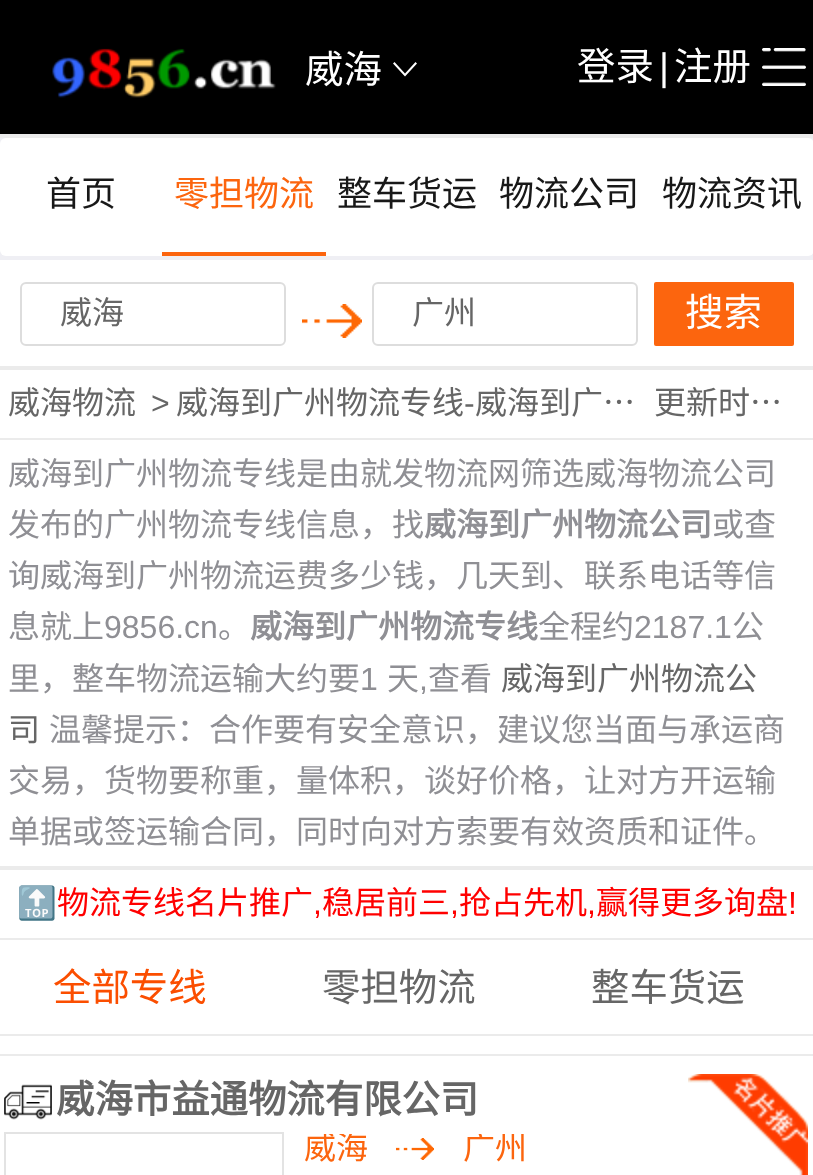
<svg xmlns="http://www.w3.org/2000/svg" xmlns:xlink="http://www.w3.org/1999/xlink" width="813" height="1175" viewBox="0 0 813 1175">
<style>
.cls-1{font:38.4px Noto Sans CJK SC;fill:#ffffff}
.cls-2{font:38.4px Liberation Sans;fill:#ffffff}
.cls-3{font:35px Noto Sans CJK SC;fill:#181818}
.cls-4{font:35px Noto Sans CJK SC;fill:#fc650e}
.cls-5{font:32px Noto Sans CJK SC;fill:#666666}
.cls-6{font:32px Liberation Sans;fill:#666666}
.cls-7{font:32px Noto Sans CJK SC;fill:#8f8f94}
.cls-8{font:bold 32px Noto Sans CJK SC;fill:#8f8f94}
.cls-9{font:32px Liberation Sans;fill:#8f8f94}
.cls-10{font:32px Noto Color Emoji;fill:#ff0000}
.cls-11{font:32px Noto Sans CJK SC;fill:#ff0000}
.cls-12{font:32px Liberation Sans;fill:#ff0000}
.cls-13{font:38.4px Noto Sans CJK SC;fill:#fb4e00}
.cls-14{font:38.4px Noto Sans CJK SC;fill:#666666}
.cls-15{font:bold 38.4px Noto Sans CJK SC;fill:#666666}
.cls-16{font:32px Noto Sans CJK SC;fill:#fc650e}
</style>
<defs>
<clipPath id="clip1"><rect x="304" y="1134" width="64" height="32"/></clipPath>
<clipPath id="clip2"><rect x="462" y="1134" width="64" height="32"/></clipPath>
</defs>
<rect width="100%" height="100%" fill="#ffffff"/>
<rect fill="#000000" x="0" y="0" width="813" height="134"/>
<image xlink:href="image0.png" x="52" y="48" width="224" height="50"/>
<path fill="#ffffff" d="M415.5 62L417 63.5L405 76.5L393 63.5L394.5 62L405 73.5Z"/>
<image xlink:href="image1.png" x="762" y="48" width="44" height="38"/>
<rect fill="#ebebeb" x="0" y="134" width="813" height="4"/>
<rect fill="#efeff4" x="0" y="138" width="813" height="122"/>
<rect fill="#ffffff" x="0" y="138" width="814" height="118" rx="6"/>
<rect fill="#fc650e" x="162" y="252" width="164" height="4"/>
<rect fill="none" stroke="#dddddd" stroke-width="2" x="21" y="283" width="264" height="62" rx="5"/>
<image xlink:href="image2.png" x="302" y="304" width="60" height="34"/>
<rect fill="none" stroke="#dddddd" stroke-width="2" x="373" y="283" width="264" height="62" rx="5"/>
<rect fill="#fc650e" x="654" y="282" width="140" height="64" rx="2"/>
<rect fill="#ebebeb" x="0" y="366" width="813" height="4"/>
<rect fill="#ebebeb" x="0" y="438" width="813" height="2"/>
<rect fill="#ebebeb" x="0" y="866" width="813" height="4"/>
<rect fill="#ebebeb" x="0" y="938" width="813" height="2"/>
<rect fill="#ebebeb" x="0" y="1054" width="813" height="2"/>
<rect fill="#ebebeb" x="0" y="1034" width="813" height="2"/>
<image xlink:href="image3.png" x="4" y="1084" width="48" height="36"/>
<image xlink:href="image4.png" x="688" y="1074" width="120" height="101"/>
<rect fill="none" stroke="#e3e3e3" stroke-width="2" x="5" y="1133" width="278" height="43"/>
<image xlink:href="image5.png" x="396" y="1138" width="38" height="22"/>
<text class="cls-1" x="305" y="83">威海</text>
<text class="cls-1" x="577" y="80">登录</text>
<text class="cls-2" x="659" y="80">|</text>
<text class="cls-1" x="674" y="80">注册</text>
<text class="cls-3" x="46" y="206">首页</text>
<text class="cls-4" x="174" y="206">零担物流</text>
<text class="cls-3" x="337" y="206">整车货运</text>
<text class="cls-3" x="499" y="206">物流公司</text>
<text class="cls-3" x="662" y="206">物流资讯</text>
<text class="cls-5" x="60" y="324">威海</text>
<text class="cls-5" x="412" y="324">广州</text>
<text class="cls-1" x="685" y="326">搜索</text>
<text class="cls-5" x="8" y="414">威海物流</text>
<text class="cls-6" x="151" y="414">&gt;</text>
<text class="cls-5" x="176" y="414">威海到广州物流专线</text>
<text class="cls-6" x="464" y="414">-</text>
<text class="cls-5" x="475" y="414">威海到广…</text>
<text class="cls-5" x="654" y="414">更新时…</text>
<text class="cls-7"><tspan x="8" y="485">威海到广州物流专线是由就发物流网筛选威海物流公司</tspan><tspan x="8" y="536">发布的广州物流专线信息，找</tspan></text>
<text class="cls-8" x="424" y="536">威海到广州物流公司</text>
<text class="cls-7" x="712" y="536">或查</text>
<text class="cls-7"><tspan x="8" y="587">询威海到广州物流运费多少钱，几天到、联系电话等信</tspan><tspan x="8" y="638">息就上</tspan></text>
<text class="cls-9" x="104" y="638">9856.cn</text>
<text class="cls-7" x="218" y="638">。</text>
<text class="cls-8" x="250" y="638">威海到广州物流专线</text>
<text class="cls-7" x="538" y="638">全程约</text>
<text class="cls-9" x="634" y="638">2187.1</text>
<text class="cls-7" x="732" y="638">公</text>
<text class="cls-7" x="8" y="690">里，整车物流运输大约要</text>
<text class="cls-9" x="360" y="690">1</text>
<text class="cls-7" x="387" y="690">天</text>
<text class="cls-9" x="419" y="690">,</text>
<text class="cls-7" x="428" y="690">查看</text>
<text class="cls-5" x="501" y="690">威海到广州物流公</text>
<text class="cls-5" x="8" y="741">司</text>
<text class="cls-7" x="49" y="741">温馨提示：合作要有安全意识，建议您当面与承运商</text>
<text class="cls-7"><tspan x="8" y="792">交易，货物要称重，量体积，谈好价格，让对方开运输</tspan><tspan x="8" y="843">单据或签运输合同，同时向对方索要有效资质和证件。</tspan></text>
<text class="cls-10" x="17" y="914">🔝</text>
<text class="cls-11" x="57" y="914">物流专线名片推广</text>
<text class="cls-12" x="313" y="914">,</text>
<text class="cls-11" x="322" y="914">稳居前三</text>
<text class="cls-12" x="450" y="914">,</text>
<text class="cls-11" x="459" y="914">抢占先机</text>
<text class="cls-12" x="587" y="914">,</text>
<text class="cls-11" x="596" y="914">赢得更多询盘</text>
<text class="cls-12" x="788" y="914">!</text>
<text class="cls-13" x="53" y="1001">全部专线</text>
<text class="cls-14" x="322" y="1001">零担物流</text>
<text class="cls-14" x="591" y="1001">整车货运</text>
<text class="cls-15" x="56" y="1113">威海市益通物流有限公司</text>
<g clip-path="url(#clip1)">
<text class="cls-16" x="304" y="1159">威海</text>
</g>
<g clip-path="url(#clip2)">
<text class="cls-16" x="463" y="1159">广州</text>
</g>
</svg>
